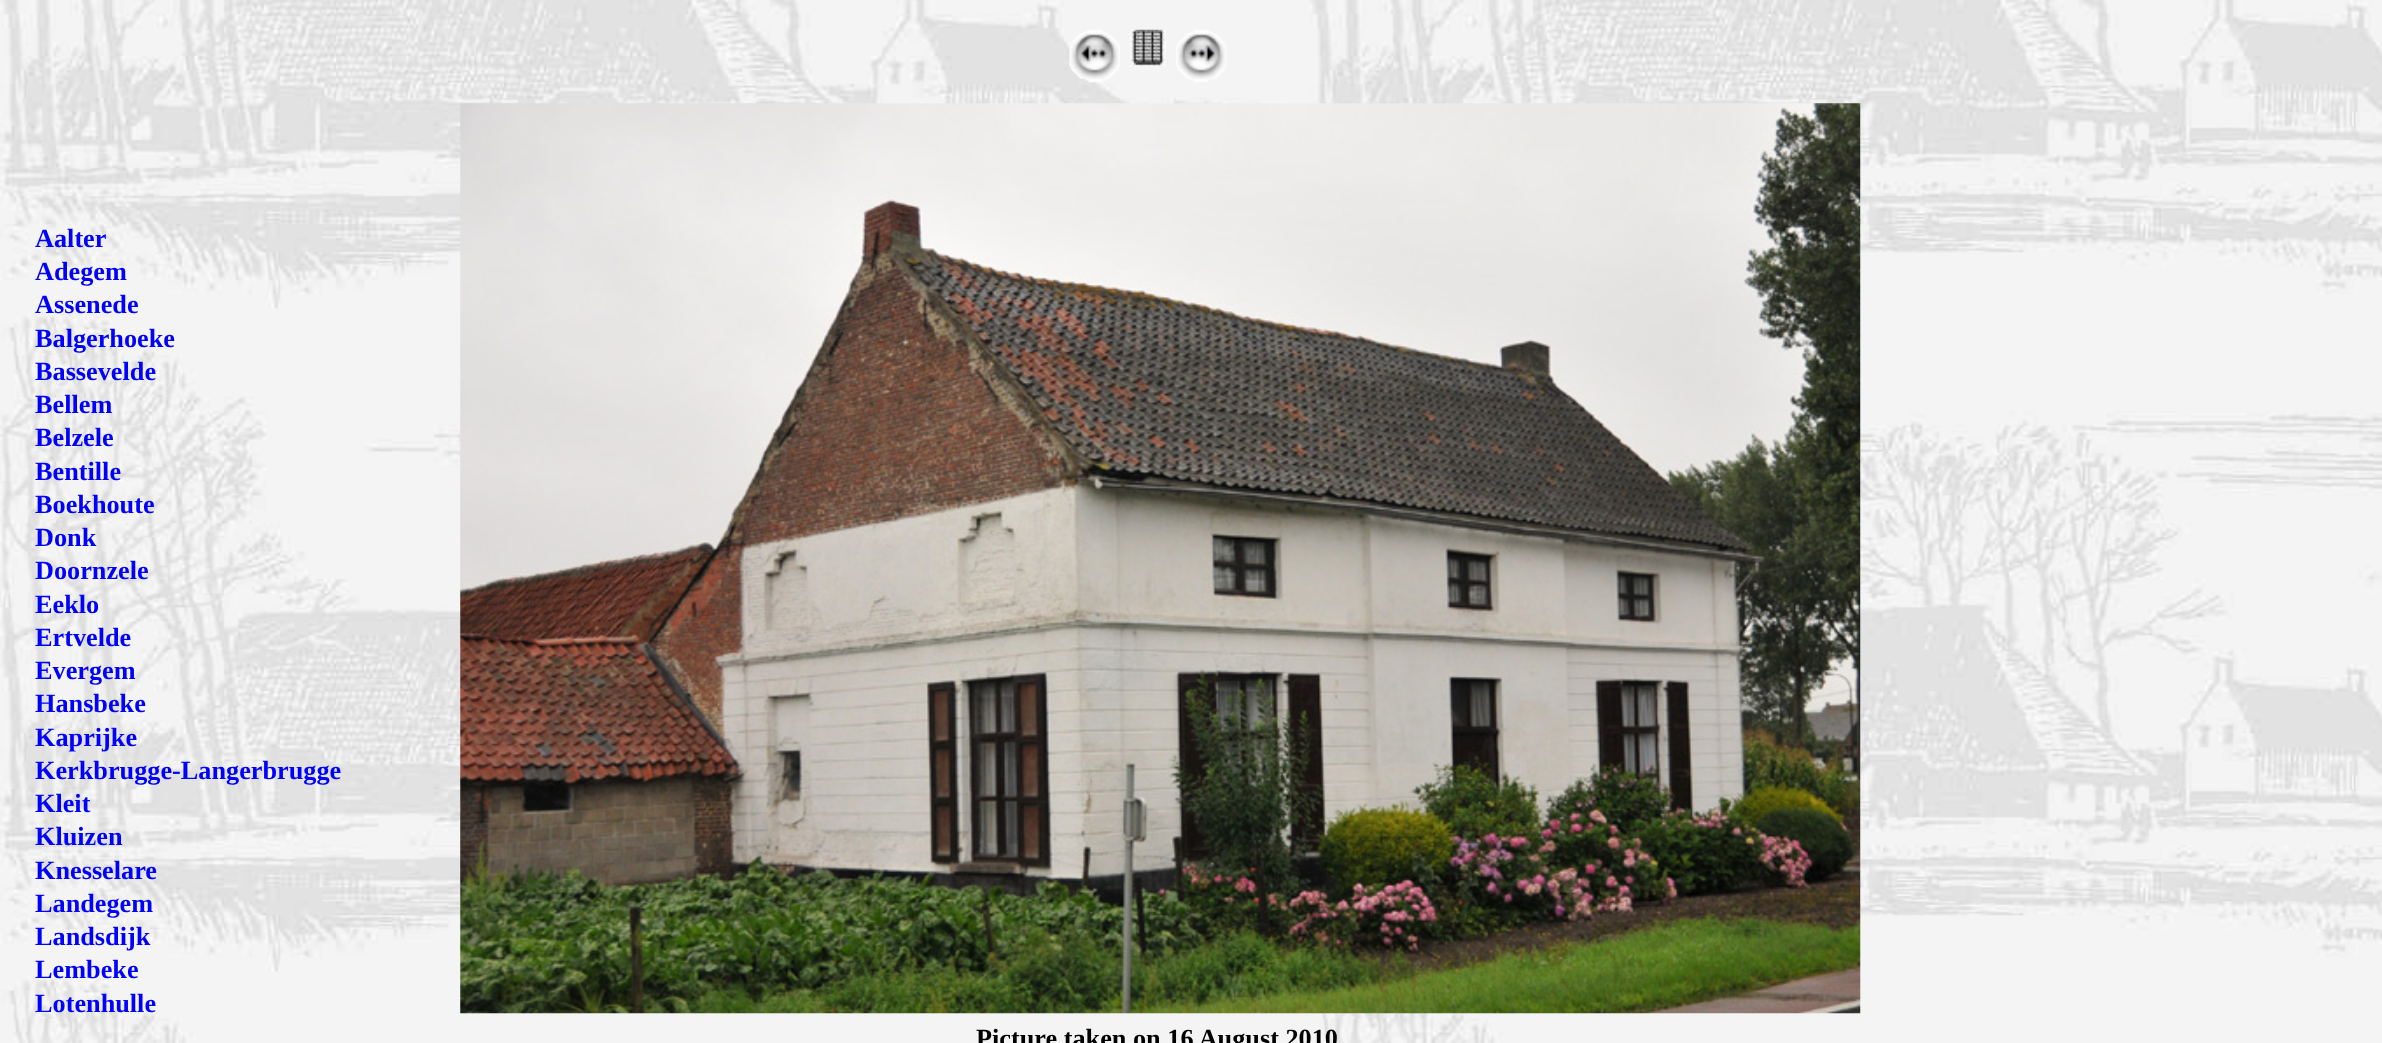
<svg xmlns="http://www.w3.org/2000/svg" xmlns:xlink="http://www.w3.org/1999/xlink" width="2382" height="1043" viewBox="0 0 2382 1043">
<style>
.cls-1{font:bold 26.25px Liberation Serif;fill:#0000ff}
.cls-2{font:bold 26.25px Liberation Serif;fill:#000000}
</style>
<rect width="100%" height="100%" fill="#ffffff"/>
<image xlink:href="image0.png" x="0" y="0" width="2382" height="1043"/>
<image xlink:href="image1.png" x="1069" y="30" width="51" height="53"/>
<image xlink:href="image2.png" x="1130" y="29" width="36" height="38"/>
<image xlink:href="image3.png" x="1176" y="30" width="51" height="52"/>
<image xlink:href="image4.png" x="460" y="103" width="1401" height="911"/>
<text class="cls-1"><tspan x="35" y="247">Aalter</tspan><tspan x="35" y="280">Adegem</tspan><tspan x="35" y="313">Assenede</tspan><tspan x="35" y="347">Balgerhoeke</tspan><tspan x="35" y="380">Bassevelde</tspan><tspan x="35" y="413">Bellem</tspan><tspan x="35" y="446">Belzele</tspan><tspan x="35" y="480">Bentille</tspan><tspan x="35" y="513">Boekhoute</tspan><tspan x="35" y="546">Donk</tspan><tspan x="35" y="579">Doornzele</tspan><tspan x="35" y="613">Eeklo</tspan><tspan x="35" y="646">Ertvelde</tspan><tspan x="35" y="679">Evergem</tspan><tspan x="35" y="712">Hansbeke</tspan><tspan x="35" y="746">Kaprijke</tspan><tspan x="35" y="779">Kerkbrugge-Langerbrugge</tspan><tspan x="35" y="812">Kleit</tspan><tspan x="35" y="845">Kluizen</tspan><tspan x="35" y="879">Knesselare</tspan><tspan x="35" y="912">Landegem</tspan><tspan x="35" y="945">Landsdijk</tspan><tspan x="35" y="978">Lembeke</tspan><tspan x="35" y="1012">Lotenhulle</tspan></text>
<text class="cls-2" x="976" y="1047">Picture taken on 16 August 2010</text>
</svg>
